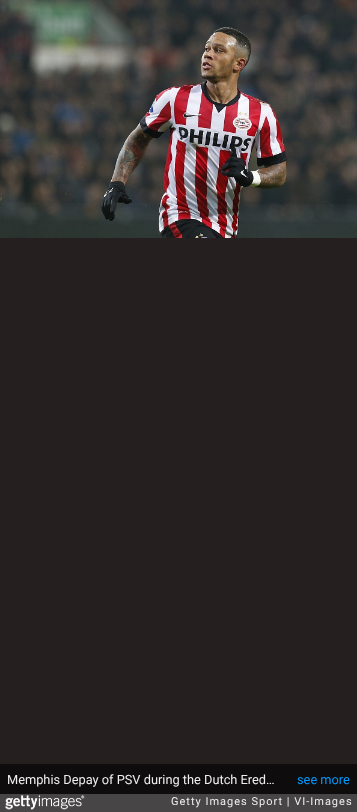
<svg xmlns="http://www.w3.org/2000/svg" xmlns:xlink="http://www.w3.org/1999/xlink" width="357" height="812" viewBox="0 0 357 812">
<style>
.cls-1{font:12.8px Roboto;fill:#eeeeee}
.cls-2{font:12.8px Roboto;fill:#0099ff}
.cls-3{font:11px Roboto;letter-spacing:1px;fill:#eeeeee}
</style>
<rect width="100%" height="100%" fill="#251f20"/>
<image xlink:href="image0.png" x="0" y="0" width="357" height="238"/>
<rect fill="#0f0c0d" x="0" y="764" width="357" height="30"/>
<rect fill="#474545" x="0" y="794" width="357" height="18"/>
<image xlink:href="image1.png" x="5" y="795" width="80" height="15"/>
<text class="cls-1" x="7" y="784">Memphis Depay of PSV during the Dutch Ered…</text>
<text class="cls-2" x="297" y="784">see more</text>
<text class="cls-3" x="171" y="805">Getty Images Sport | VI-Images</text>
</svg>
